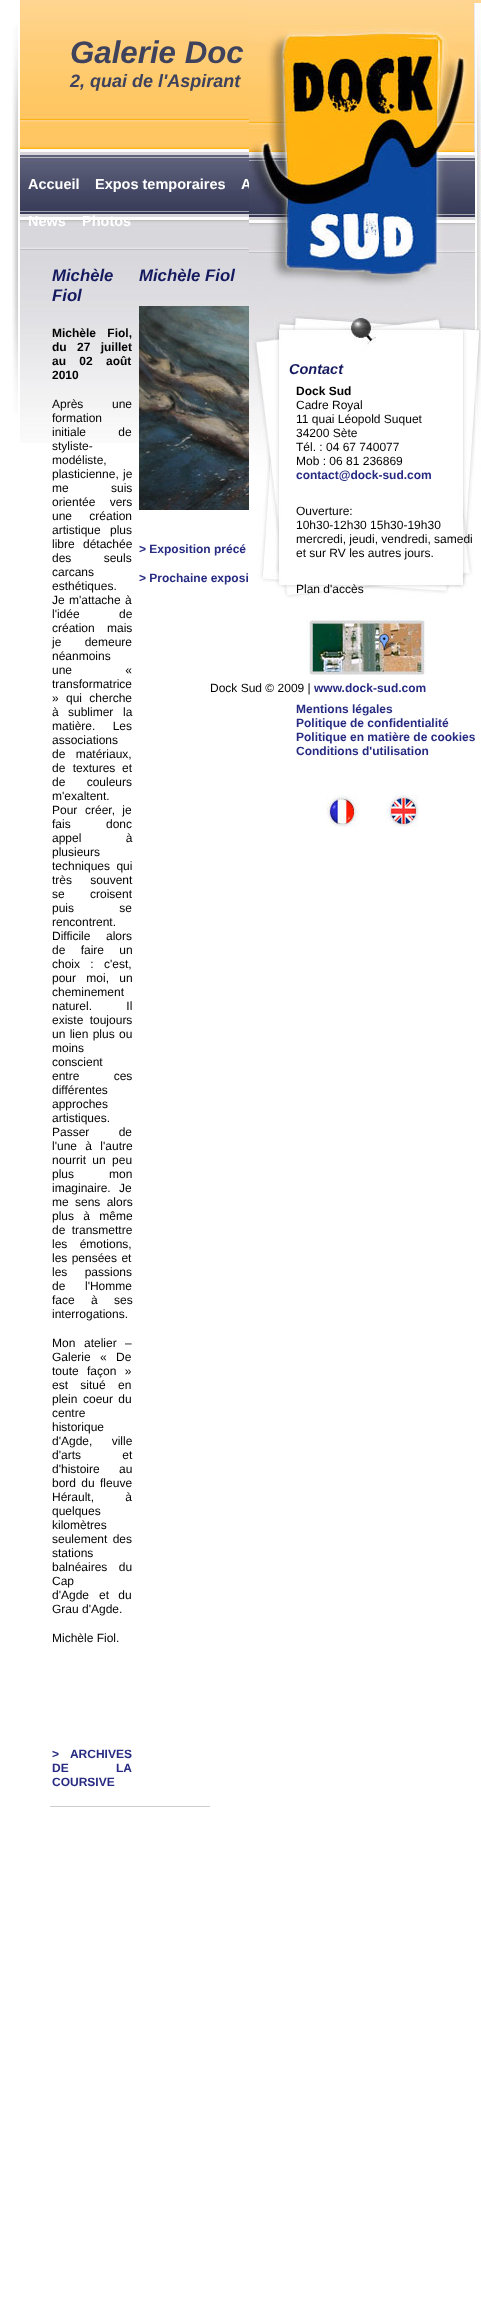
<svg xmlns="http://www.w3.org/2000/svg" xmlns:xlink="http://www.w3.org/1999/xlink" width="481" height="2313" viewBox="0 0 481 2313">
<style>
.cls-1{font:italic bold 31.25px Liberation Sans;fill:#3e425d}
.cls-2{font:italic bold 18px Liberation Sans;fill:#3e425d}
.cls-3{font:bold 14.5px Liberation Sans;fill:#ffffff}
.cls-4{font:italic bold 16.75px Liberation Sans;fill:#151a5f}
.cls-5{font:bold 12px Liberation Sans;fill:#000000}
.cls-6{font:12px Liberation Sans;fill:#000000}
.cls-7{font:bold 12px Liberation Sans;fill:#262b81}
.cls-8{font:italic bold 14.5px Liberation Sans;fill:#151a5f}
</style>
<rect width="100%" height="100%" fill="#ffffff"/>
<image xlink:href="image0.png" x="12" y="25" width="6" height="388"/>
<image xlink:href="image1.png" x="20" y="0" width="461" height="155"/>
<image xlink:href="image2.png" x="20" y="194" width="229" height="20"/>
<image xlink:href="image3.png" x="20" y="155" width="229" height="39"/>
<image xlink:href="image4.png" x="20" y="214" width="229" height="229"/>
<image xlink:href="image5.png" x="139" y="306" width="110" height="204"/>
<rect fill="#cccccc" x="50" y="1806" width="160" height="1"/>
<image xlink:href="image7.png" x="249" y="311" width="232" height="287"/>
<image xlink:href="image8.png" x="306" y="618" width="120" height="57"/>
<image xlink:href="image9.png" x="326" y="795" width="32" height="32"/>
<image xlink:href="image10.png" x="386" y="795" width="33" height="32"/>
<text class="cls-1" x="70" y="63">Galerie Doc</text>
<text class="cls-2" x="70" y="87">2, quai de l'Aspirant</text>
<text class="cls-3" x="28" y="189">Accueil</text>
<text class="cls-3" x="95" y="189">Expos temporaires</text>
<text class="cls-3" x="241" y="189">A</text>
<text class="cls-3" x="28" y="226">News</text>
<text class="cls-3" x="82" y="226">Photos</text>
<text class="cls-4"><tspan x="52" y="281">Michèle</tspan><tspan x="52" y="301">Fiol</tspan></text>
<text class="cls-5"><tspan x="52" y="337" word-spacing="8">Michèle Fiol,</tspan><tspan x="52" y="351">du</tspan></text>
<text class="cls-5" x="77" y="351" word-spacing="7">27 juillet</text>
<text class="cls-5"><tspan x="52" y="365" word-spacing="10">au 02 août</tspan><tspan x="52" y="379">2010</tspan></text>
<text class="cls-6" x="52" y="408">Après</text>
<text class="cls-6" x="112" y="408">une</text>
<text class="cls-6"><tspan x="52" y="422">formation</tspan><tspan x="52" y="436" word-spacing="29">initiale de</tspan><tspan x="52" y="450">styliste-</tspan><tspan x="52" y="464">modéliste,</tspan><tspan x="52" y="478" word-spacing="1">plasticienne, je</tspan><tspan x="52" y="492">me</tspan></text>
<text class="cls-6" x="111" y="492">suis</text>
<text class="cls-6"><tspan x="52" y="506" word-spacing="11">orientée vers</tspan><tspan x="52" y="520" word-spacing="14">une création</tspan><tspan x="52" y="534" word-spacing="6">artistique plus</tspan><tspan x="52" y="548">libre</tspan></text>
<text class="cls-6" x="83" y="548">détachée</text>
<text class="cls-6"><tspan x="52" y="562" word-spacing="29">des seuls</tspan><tspan x="52" y="576">carcans</tspan><tspan x="52" y="590">esthétiques.</tspan><tspan x="52" y="604">Je</tspan></text>
<text class="cls-6" x="69" y="604" word-spacing="1">m'attache à</text>
<text class="cls-6"><tspan x="52" y="618" word-spacing="36">l'idée de</tspan><tspan x="52" y="632" word-spacing="9">création mais</tspan><tspan x="52" y="646" word-spacing="20">je demeure</tspan><tspan x="52" y="660">néanmoins</tspan><tspan x="52" y="674" word-spacing="50">une «</tspan><tspan x="52" y="688">transformatrice</tspan><tspan x="52" y="702" word-spacing="4">» qui cherche</tspan><tspan x="52" y="716" word-spacing="6">à sublimer</tspan></text>
<text class="cls-6" x="123" y="716">la</text>
<text class="cls-6"><tspan x="52" y="730" word-spacing="14">matière. Les</tspan><tspan x="52" y="744">associations</tspan><tspan x="52" y="758" word-spacing="7">de matériaux,</tspan><tspan x="52" y="772" word-spacing="4">de textures</tspan></text>
<text class="cls-6" x="122" y="772">et</text>
<text class="cls-6"><tspan x="52" y="786" word-spacing="18">de couleurs</tspan><tspan x="52" y="800">m'exaltent.</tspan><tspan x="52" y="814">Pour</tspan></text>
<text class="cls-6" x="85" y="814" word-spacing="4">créer, je</text>
<text class="cls-6"><tspan x="52" y="828" word-spacing="32">fais donc</tspan><tspan x="52" y="842" word-spacing="41">appel à</tspan><tspan x="52" y="856">plusieurs</tspan><tspan x="52" y="870" word-spacing="3">techniques qui</tspan><tspan x="52" y="884" word-spacing="15">très souvent</tspan><tspan x="52" y="898" word-spacing="22">se croisent</tspan><tspan x="52" y="912" word-spacing="42">puis se</tspan><tspan x="52" y="926">rencontrent.</tspan><tspan x="52" y="940">Difficile</tspan></text>
<text class="cls-6" x="106" y="940">alors</text>
<text class="cls-6"><tspan x="52" y="954" word-spacing="12">de faire un</tspan><tspan x="52" y="968" word-spacing="7">choix : c'est,</tspan><tspan x="52" y="982" word-spacing="7">pour moi, un</tspan><tspan x="52" y="996">cheminement</tspan><tspan x="52" y="1010" word-spacing="31">naturel. Il</tspan><tspan x="52" y="1024" word-spacing="3">existe toujours</tspan><tspan x="52" y="1038" word-spacing="1">un lien plus ou</tspan><tspan x="52" y="1052">moins</tspan><tspan x="52" y="1066">conscient</tspan><tspan x="52" y="1080" word-spacing="31">entre ces</tspan><tspan x="52" y="1094">différentes</tspan><tspan x="52" y="1108">approches</tspan><tspan x="52" y="1122">artistiques.</tspan><tspan x="52" y="1136" word-spacing="26">Passer de</tspan><tspan x="52" y="1150" word-spacing="5">l'une à l'autre</tspan><tspan x="52" y="1164" word-spacing="3">nourrit un peu</tspan><tspan x="52" y="1178">plus</tspan></text>
<text class="cls-6" x="109" y="1178">mon</text>
<text class="cls-6"><tspan x="52" y="1192" word-spacing="5">imaginaire. Je</tspan><tspan x="52" y="1206" word-spacing="3">me sens alors</tspan><tspan x="52" y="1220" word-spacing="6">plus à même</tspan><tspan x="52" y="1234" word-spacing="3">de transmettre</tspan><tspan x="52" y="1248" word-spacing="9">les émotions,</tspan><tspan x="52" y="1262" word-spacing="1">les pensées et</tspan><tspan x="52" y="1276" word-spacing="14">les passions</tspan><tspan x="52" y="1290">de</tspan></text>
<text class="cls-6" x="85" y="1290">l'Homme</text>
<text class="cls-6"><tspan x="52" y="1304" word-spacing="13">face à ses</tspan><tspan x="52" y="1318">interrogations.</tspan></text>
<text class="cls-6" x="52" y="1347">Mon</text>
<text class="cls-6" x="84" y="1347" word-spacing="5">atelier –</text>
<text class="cls-6"><tspan x="52" y="1361" word-spacing="6">Galerie « De</tspan><tspan x="52" y="1375" word-spacing="5">toute façon »</tspan><tspan x="52" y="1389" word-spacing="9">est situé en</tspan><tspan x="52" y="1403">plein</tspan></text>
<text class="cls-6" x="83" y="1403" word-spacing="2">coeur du</text>
<text class="cls-6"><tspan x="52" y="1417">centre</tspan><tspan x="52" y="1431">historique</tspan><tspan x="52" y="1445" word-spacing="16">d'Agde, ville</tspan><tspan x="52" y="1459" word-spacing="38">d'arts et</tspan><tspan x="52" y="1473" word-spacing="16">d'histoire au</tspan><tspan x="52" y="1487" word-spacing="2">bord du fleuve</tspan><tspan x="52" y="1501" word-spacing="28">Hérault, à</tspan><tspan x="52" y="1515">quelques</tspan><tspan x="52" y="1529">kilomètres</tspan><tspan x="52" y="1543" word-spacing="2">seulement des</tspan><tspan x="52" y="1557">stations</tspan><tspan x="52" y="1571" word-spacing="8">balnéaires du</tspan><tspan x="52" y="1585">Cap</tspan><tspan x="52" y="1599">d'Agde</tspan></text>
<text class="cls-6" x="99" y="1599" word-spacing="6">et du</text>
<text class="cls-6" x="52" y="1613">Grau d'Agde.</text>
<text class="cls-6" x="52" y="1642">Michèle Fiol.</text>
<text class="cls-7"><tspan x="52" y="1758" word-spacing="8">&gt; ARCHIVES</tspan><tspan x="52" y="1772" word-spacing="44">DE LA</tspan><tspan x="52" y="1786">COURSIVE</tspan></text>
<text class="cls-4" x="139" y="281">Michèle Fiol</text>
<text class="cls-7" x="139" y="553">&gt; Exposition précé</text>
<text class="cls-7" x="139" y="582">&gt; Prochaine exposi</text>
<text class="cls-6" x="210" y="692">Dock Sud © 2009 |</text>
<image xlink:href="image6.png" x="249" y="3" width="232" height="308"/>
<text class="cls-8" x="289" y="374">Contact</text>
<text class="cls-5" x="296" y="395">Dock Sud</text>
<text class="cls-6"><tspan x="296" y="409">Cadre Royal</tspan><tspan x="296" y="423">11 quai Léopold Suquet</tspan><tspan x="296" y="437">34200 Sète</tspan><tspan x="296" y="451">Tél. : 04 67 740077</tspan><tspan x="296" y="465">Mob : 06 81 236869</tspan></text>
<text class="cls-7" x="296" y="479">contact@dock-sud.com</text>
<text class="cls-6"><tspan x="296" y="515">Ouverture:</tspan><tspan x="296" y="529">10h30-12h30 15h30-19h30</tspan><tspan x="296" y="543">mercredi, jeudi, vendredi, samedi</tspan><tspan x="296" y="557">et sur RV les autres jours.</tspan></text>
<text class="cls-6" x="296" y="593">Plan d'accès</text>
<text class="cls-7"><tspan x="296" y="713">Mentions légales</tspan><tspan x="296" y="727">Politique de confidentialité</tspan><tspan x="296" y="741">Politique en matière de cookies</tspan><tspan x="296" y="755">Conditions d'utilisation</tspan></text>
<text class="cls-7" x="314" y="692">www.dock-sud.com</text>
</svg>
